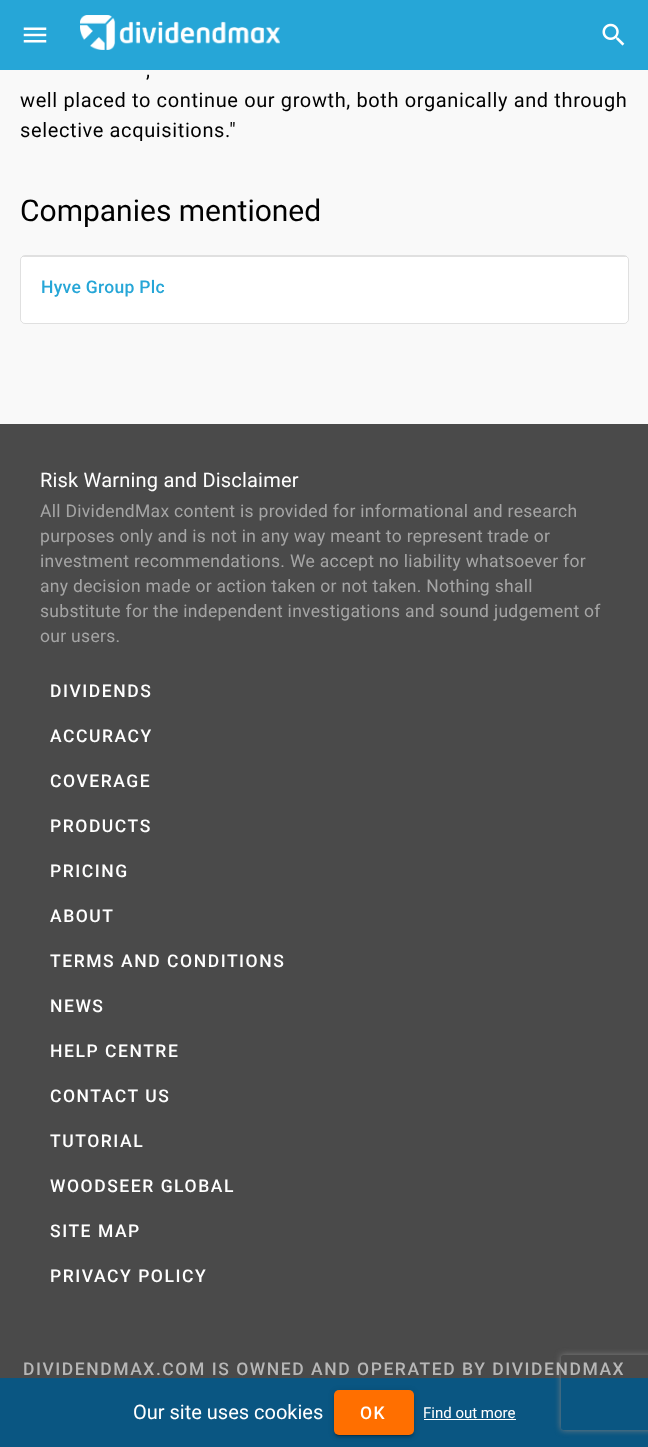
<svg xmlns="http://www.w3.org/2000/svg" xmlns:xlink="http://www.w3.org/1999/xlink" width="648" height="1447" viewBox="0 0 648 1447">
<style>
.cls-1{font:20px Roboto;letter-spacing:0.62px;fill:#000000}
.cls-2{font:30px Roboto;fill:#000000}
.cls-3{font:500 17.5px Roboto;letter-spacing:0.3px;fill:#26a6d7}
.cls-4{font:20px Roboto;letter-spacing:0.2px;fill:#ffffff}
.cls-5{font:17.5px Roboto;letter-spacing:0.3px;fill:#a5a5a5}
.cls-6{font:500 17.5px Roboto;letter-spacing:1.55px;fill:#ffffff}
.cls-7{font:500 17.5px Roboto;letter-spacing:1.55px;fill:#b7b7b7}
.cls-8{font:20px Roboto;fill:#ffffff}
.cls-9{font:15px Roboto;fill:#ffffff}
</style>
<defs>
<clipPath id="clip1"><rect x="21" y="256" width="607" height="67" rx="4"/></clipPath>
<clipPath id="clip2"><path d="M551 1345H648V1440H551ZM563.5 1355H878.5C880 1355 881 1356 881 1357.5V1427.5C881 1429 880 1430 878.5 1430H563.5C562 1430 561 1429 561 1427.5V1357.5C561 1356 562 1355 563.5 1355Z" clip-rule="evenodd"/></clipPath>
</defs>
<rect width="100%" height="100%" fill="#f9f9f9"/>
<rect fill="#26a6d7" x="0" y="0" width="648" height="70"/>
<image xlink:href="image0.png" x="23" y="27" width="24" height="16"/>
<image xlink:href="image1.png" x="80" y="15" width="200" height="35"/>
<image xlink:href="image2.png" x="602" y="23" width="23" height="23"/>
<rect fill="#ffffff" x="20" y="255" width="609" height="69" rx="5"/>
<rect fill="none" stroke="#000000" stroke-opacity="0.12" x="20.5" y="255.5" width="608" height="68" rx="4.5"/>
<g clip-path="url(#clip1)">
<rect fill="#000000" fill-opacity="0.12" x="21" y="256" width="607" height="1"/>
</g>
<rect fill="#4a4a4a" x="0" y="424" width="648" height="954"/>
<rect fill="#0a5682" x="0" y="1378" width="648" height="69"/>
<rect fill="#000000" fill-opacity="0.12" filter="blur(3px)" x="334" y="1391" width="80" height="45" rx="5"/>
<rect fill="#000000" fill-opacity="0.14" filter="blur(1px)" x="334" y="1393" width="80" height="45" rx="5"/>
<rect fill="#000000" fill-opacity="0.2" filter="blur(0.5px)" x="336" y="1396" width="75" height="40" rx="2.5"/>
<rect fill="#ff6f00" x="334" y="1390" width="80" height="45" rx="5"/>
<rect fill="#ffffff" x="424" y="1419" width="92" height="1"/>
<g clip-path="url(#clip2)">
<rect fill="#808080" filter="blur(3px)" x="561" y="1355" width="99" height="75" rx="2.5"/>
</g>
<text class="cls-1" x="146" y="77">,</text>
<text class="cls-1"><tspan x="20" y="107">well placed to continue our growth, both organically and through</tspan><tspan x="20" y="137">selective acquisitions."</tspan></text>
<text class="cls-2" x="20" y="221">Companies mentioned</text>
<text class="cls-3" x="41" y="293">Hyve Group Plc</text>
<text class="cls-4" x="40" y="487">Risk Warning and Disclaimer</text>
<text class="cls-5"><tspan x="40" y="517">All DividendMax content is provided for informational and research</tspan><tspan x="40" y="542">purposes only and is not in any way meant to represent trade or</tspan><tspan x="40" y="567">investment recommendations. We accept no liability whatsoever for</tspan><tspan x="40" y="592">any decision made or action taken or not taken. Nothing shall</tspan><tspan x="40" y="617">substitute for the independent investigations and sound judgement of</tspan><tspan x="40" y="642">our users.</tspan></text>
<text class="cls-6" x="50" y="697">DIVIDENDS</text>
<text class="cls-6" x="50" y="742">ACCURACY</text>
<text class="cls-6" x="50" y="787">COVERAGE</text>
<text class="cls-6" x="50" y="832">PRODUCTS</text>
<text class="cls-6" x="50" y="877">PRICING</text>
<text class="cls-6" x="50" y="922">ABOUT</text>
<text class="cls-6" x="50" y="967">TERMS AND CONDITIONS</text>
<text class="cls-6" x="50" y="1012">NEWS</text>
<text class="cls-6" x="50" y="1057">HELP CENTRE</text>
<text class="cls-6" x="50" y="1102">CONTACT US</text>
<text class="cls-6" x="50" y="1147">TUTORIAL</text>
<text class="cls-6" x="50" y="1192">WOODSEER GLOBAL</text>
<text class="cls-6" x="50" y="1237">SITE MAP</text>
<text class="cls-6" x="50" y="1282">PRIVACY POLICY</text>
<text class="cls-7" x="23" y="1375">DIVIDENDMAX.COM IS OWNED AND OPERATED BY DIVIDENDMAX</text>
<text class="cls-8" x="133" y="1419">Our site uses cookies</text>
<text class="cls-6" x="360" y="1419">OK</text>
<text class="cls-9" x="423" y="1418">Find out more</text>
</svg>
